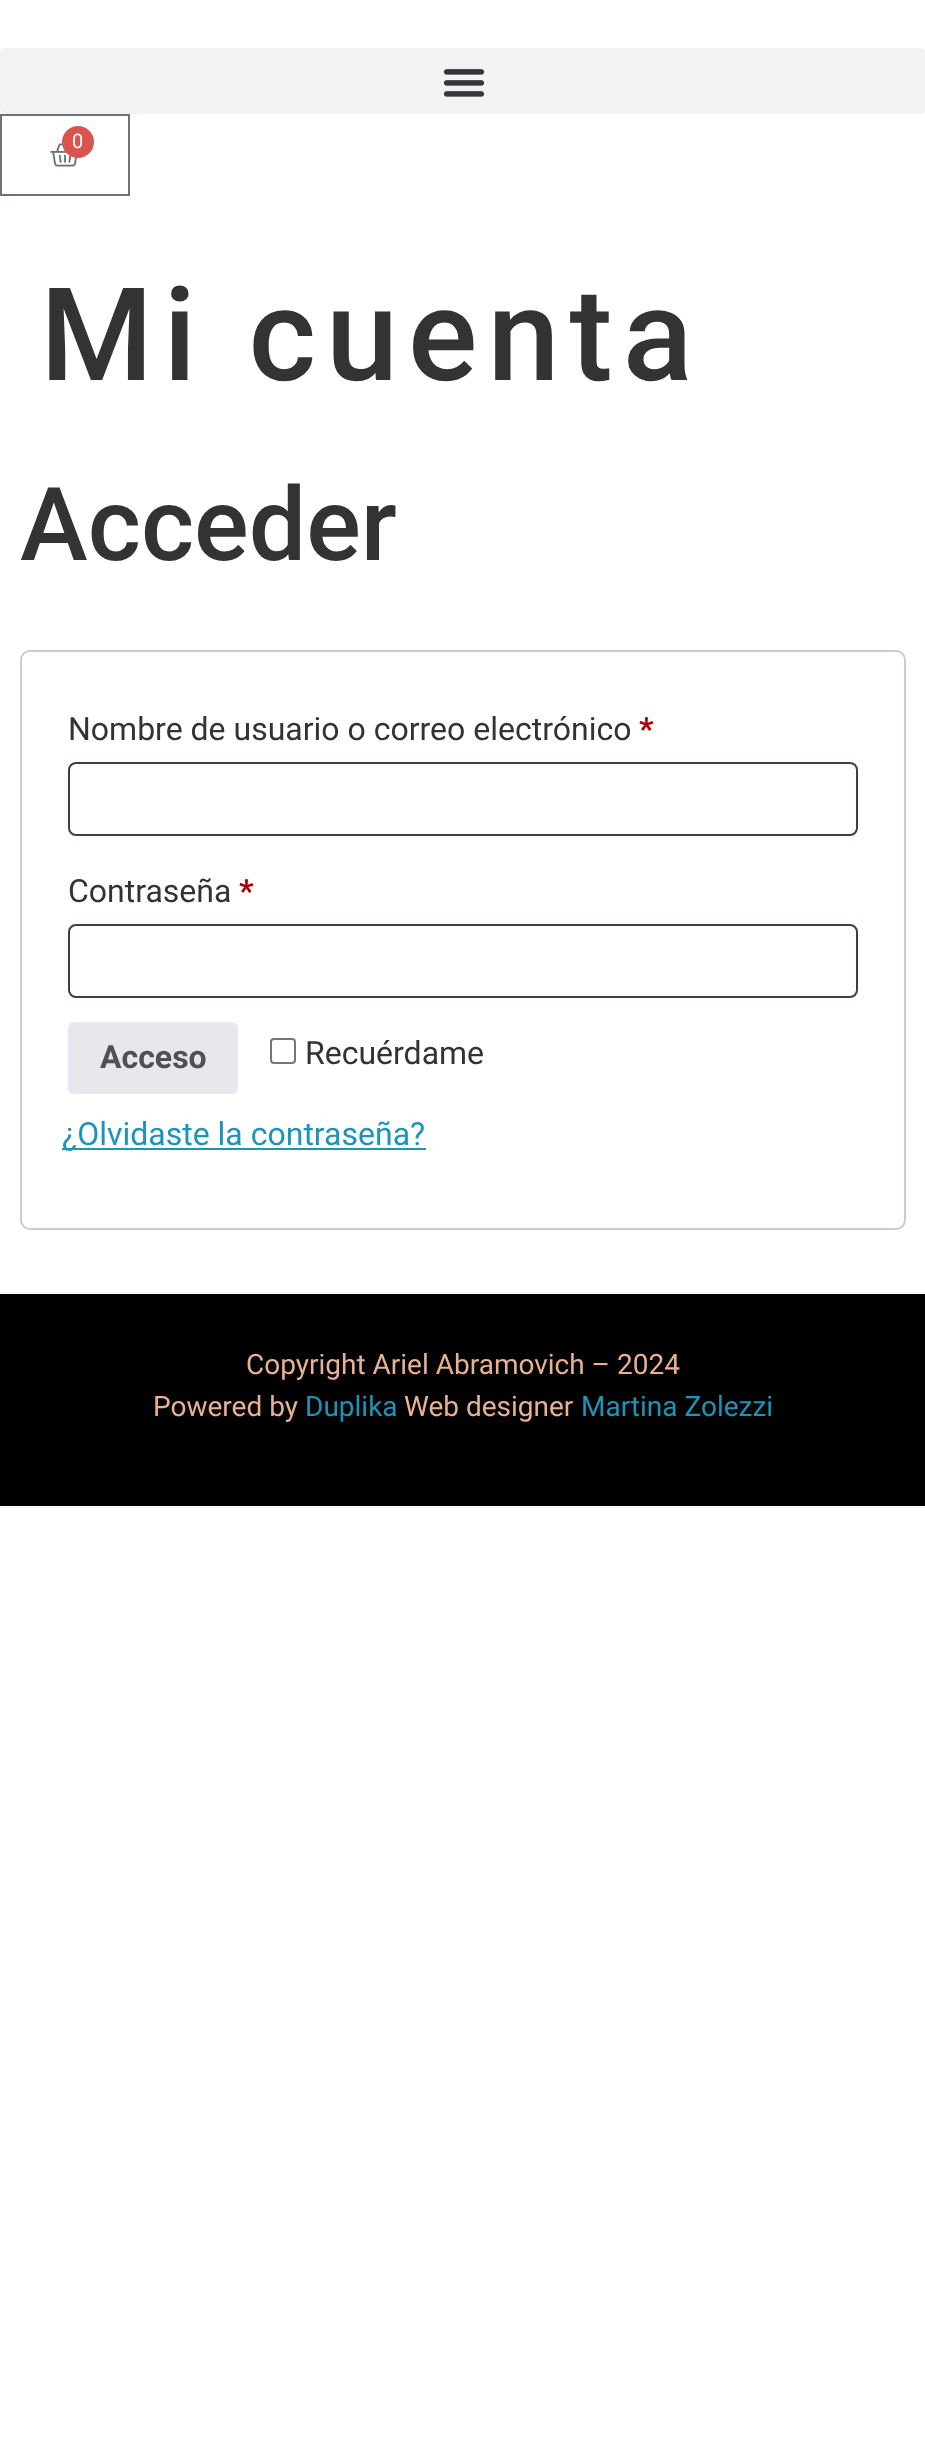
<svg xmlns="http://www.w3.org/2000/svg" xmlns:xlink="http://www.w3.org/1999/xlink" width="925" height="2443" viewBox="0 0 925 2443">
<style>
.cls-1{font:20px Roboto;fill:#ffffff}
.cls-2{font:500 129.5px Roboto;letter-spacing:10px;fill:#333333}
.cls-3{font:500 102px Roboto;fill:#333333}
.cls-4{font:32px Roboto;fill:#333333}
.cls-5{font:bold 32px Roboto;fill:#aa0000}
.cls-6{font:bold 32px Roboto;fill:#515151}
.cls-7{font:32px Roboto;fill:#1c94b7}
.cls-8{font:28px Roboto;fill:#e8b192}
.cls-9{font:28px Roboto;fill:#1c94b7}
</style>
<rect width="100%" height="100%" fill="#ffffff"/>
<rect fill="#f2f2f2" x="0" y="48" width="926" height="66" rx="6"/>
<image xlink:href="image0.png" x="443" y="69" width="42" height="28"/>
<rect fill="none" stroke="#69727d" stroke-width="2" x="1" y="115" width="128" height="80"/>
<image xlink:href="image1.png" x="50" y="143" width="27" height="24"/>
<circle fill="#d9534f" cx="78" cy="142" r="16"/>
<rect fill="none" stroke="#cfc8d8" stroke-width="2" x="21" y="651" width="884" height="578" rx="9"/>
<rect fill="none" stroke="#4d3939" stroke-width="2" x="69" y="763" width="788" height="72" rx="7"/>
<rect fill="none" stroke="#4d3939" stroke-width="2" x="69" y="925" width="788" height="72" rx="7"/>
<rect fill="#e9e6ed" x="68" y="1022" width="170" height="72" rx="6"/>
<rect fill="none" stroke="#767676" stroke-width="2" x="271" y="1039" width="24" height="24" rx="3"/>
<rect fill="#1c94b7" x="62" y="1148" width="364" height="2"/>
<rect fill="#000000" x="0" y="1294" width="925" height="212"/>
<text class="cls-1" x="72" y="148">0</text>
<text class="cls-2" x="40" y="380">Mi cuenta</text>
<text class="cls-3" x="20" y="560">Acceder</text>
<text class="cls-4" x="68" y="740">Nombre de usuario o correo electrónico</text>
<text class="cls-5" x="639" y="740">*</text>
<text class="cls-4" x="68" y="902">Contraseña</text>
<text class="cls-5" x="239" y="902">*</text>
<text class="cls-6" x="100" y="1068">Acceso</text>
<text class="cls-4" x="305" y="1064">Recuérdame</text>
<text class="cls-7" x="62" y="1145">¿Olvidaste la contraseña?</text>
<text class="cls-8" x="246" y="1374">Copyright Ariel Abramovich – 2024</text>
<text class="cls-8" x="153" y="1416">Powered by</text>
<text class="cls-9" x="305" y="1416">Duplika</text>
<text class="cls-8" x="404" y="1416">Web designer</text>
<text class="cls-9" x="581" y="1416">Martina Zolezzi</text>
</svg>
